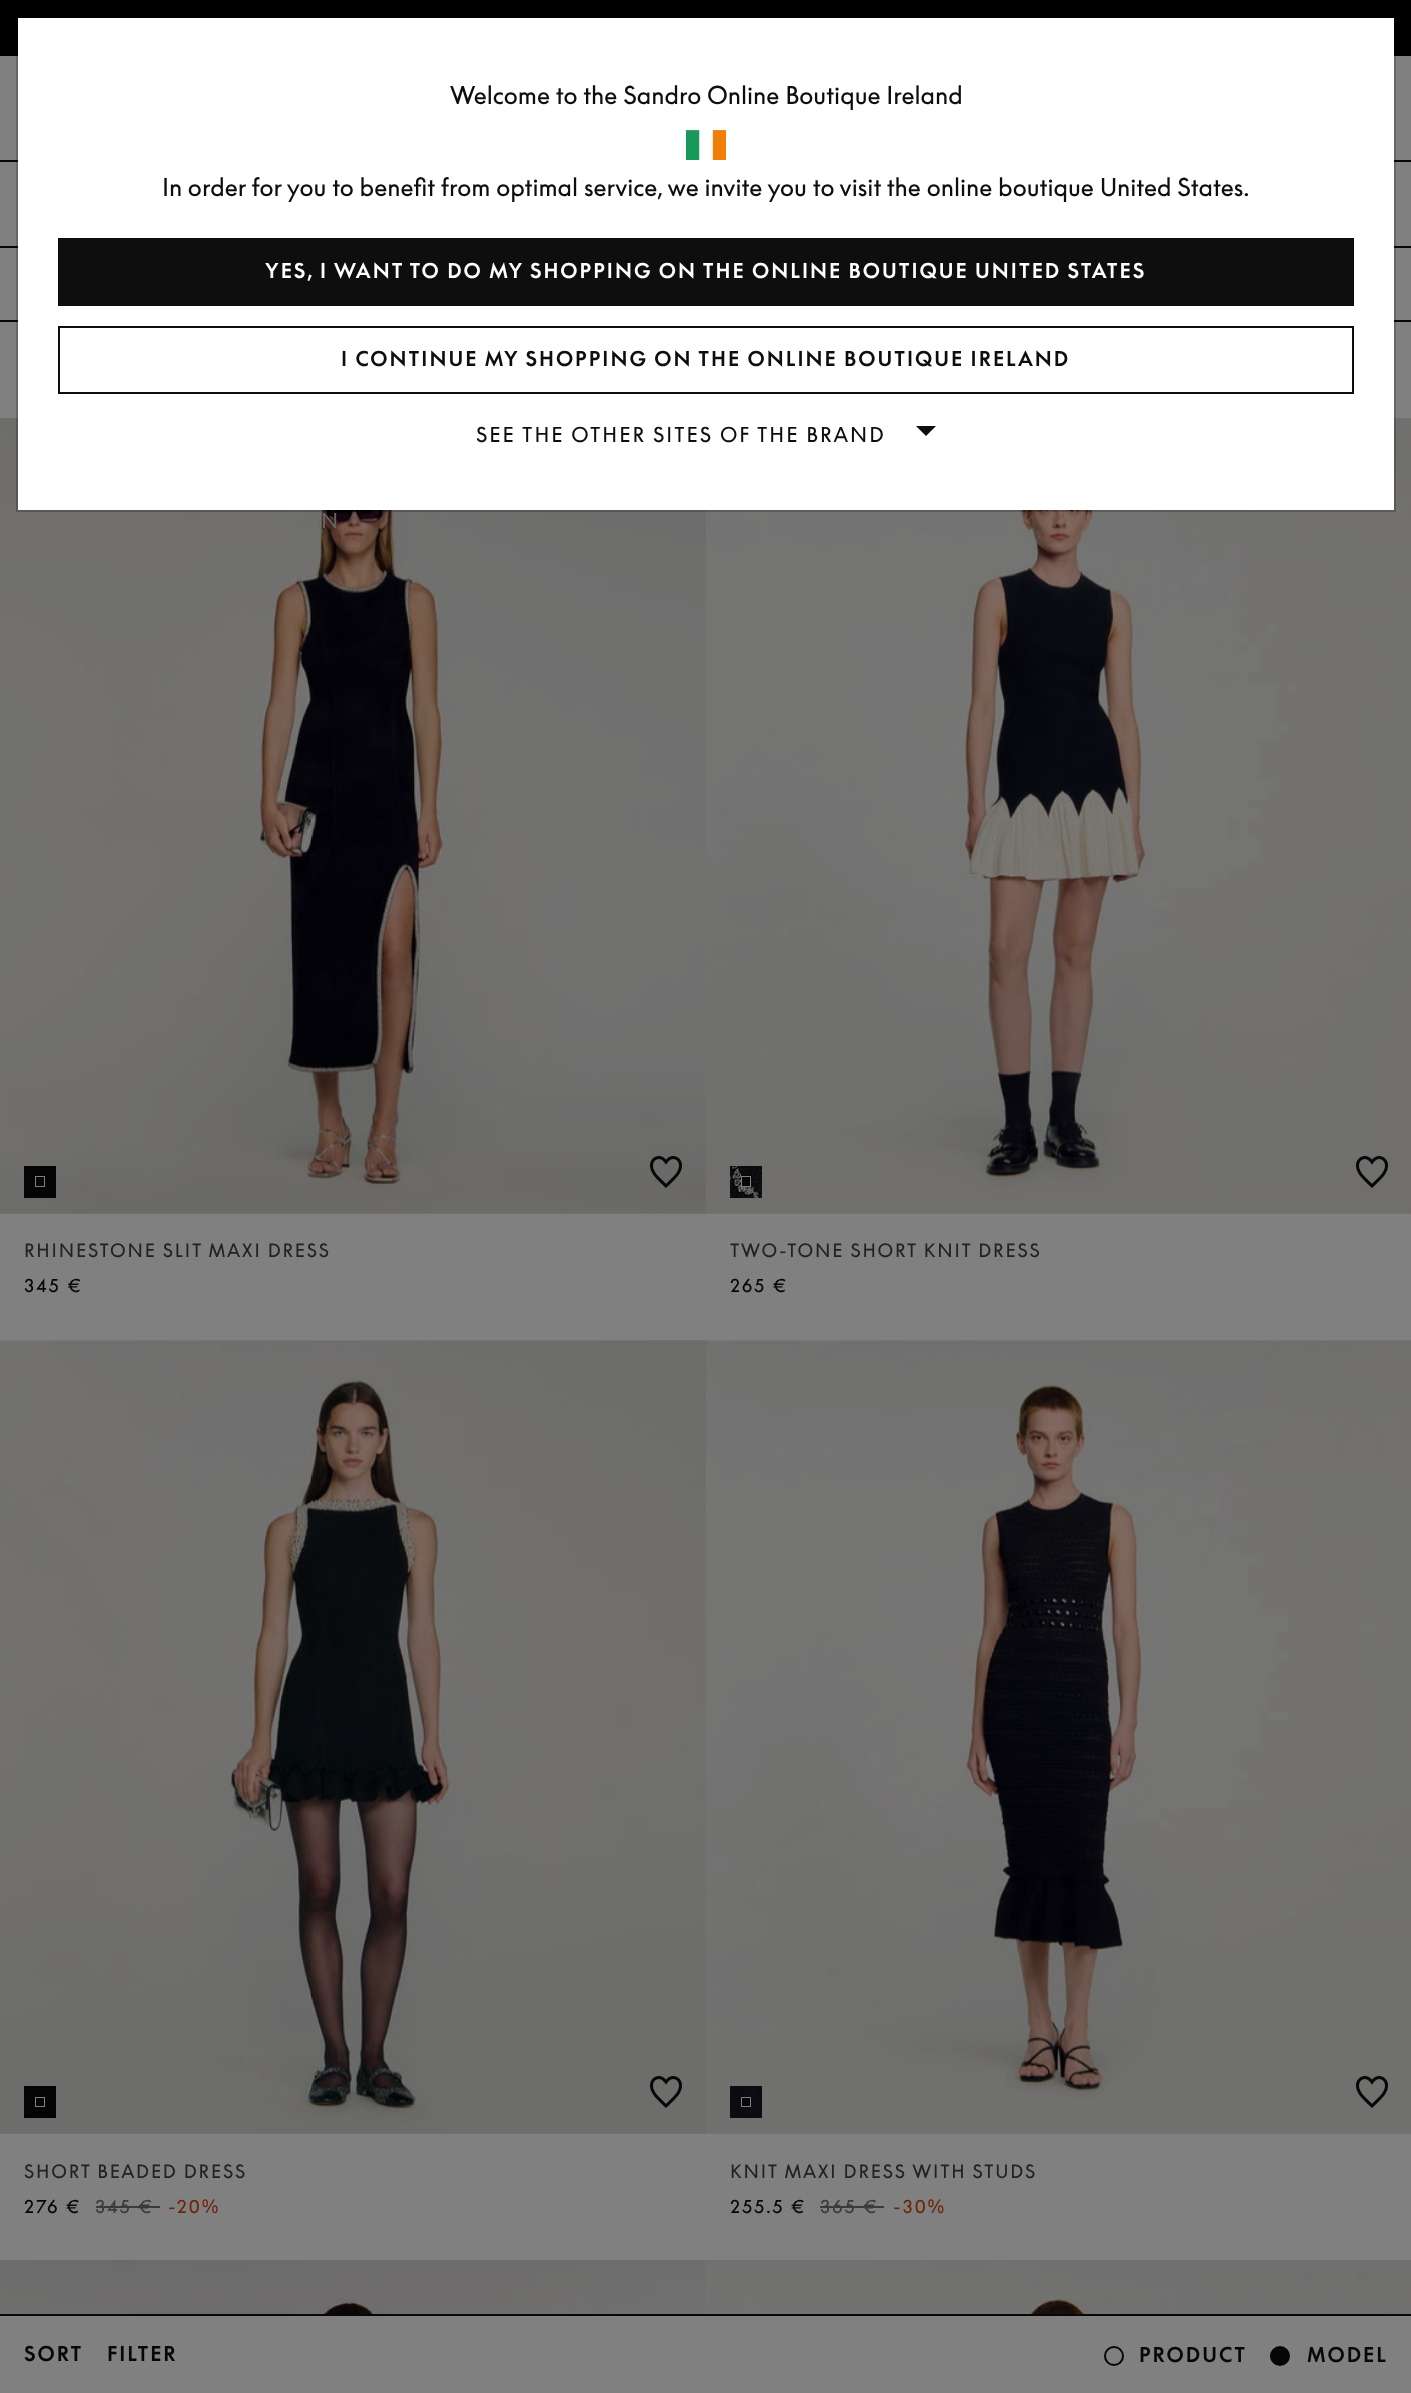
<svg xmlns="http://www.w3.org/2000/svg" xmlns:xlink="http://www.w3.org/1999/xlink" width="1411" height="2393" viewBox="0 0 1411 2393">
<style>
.cls-1{font:24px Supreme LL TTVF;fill:#0e0e0e}
.cls-2{font:bold 20px 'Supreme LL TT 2';letter-spacing:2px;fill:#ffffff}
.cls-3{font:bold 20px 'Supreme LL TT 2';letter-spacing:2px;fill:#0e0e0e}
.cls-4{font:20px Supreme LL TTVF;letter-spacing:2px;fill:#0e0e0e}
.cls-5{font:20px Supreme LL TTVF;letter-spacing:2px;fill:#66615e}
.cls-6{font:18px Supreme LL TTVF;letter-spacing:1.8px;fill:#222222}
.cls-7{font:18px Supreme LL TTVF;letter-spacing:1.8px;fill:#070707}
.cls-8{font:18px Supreme LL TTVF;letter-spacing:1.8px;fill:#3b3b3b}
.cls-9{font:18px Supreme LL TTVF;letter-spacing:1.8px;fill:#6d2508}
.cls-10{font:bold 20px 'Supreme LL TT 2';letter-spacing:2px;fill:#070707}
.cls-11{font:bold 20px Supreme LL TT;letter-spacing:2px;fill:#070707}
</style>
<rect width="100%" height="100%" fill="#808080"/>
<rect fill="#000000" x="0" y="0" width="1411" height="56"/>
<rect fill="#070707" x="0" y="160" width="1411" height="2"/>
<rect fill="#070707" x="0" y="246" width="1411" height="2"/>
<rect fill="#070707" x="0" y="320" width="1411" height="2"/>
<image xlink:href="image1.png" x="0" y="418" width="706" height="796"/>
<image xlink:href="image4.png" x="706" y="418" width="705" height="796"/>
<rect fill="#ffffff" x="18" y="18" width="1376" height="492"/>
<rect fill="none" stroke="#000000" stroke-opacity="0.2" stroke-width="2" x="17" y="17" width="1378" height="494"/>
<image xlink:href="image0.png" x="686" y="130" width="40" height="30"/>
<rect fill="#0e0e0e" x="58" y="238" width="1296" height="68"/>
<rect fill="none" stroke="#0e0e0e" stroke-width="2" x="59" y="327" width="1294" height="66"/>
<path fill="#0e0e0e" d="M916 426H936L926 436Z"/>
<image xlink:href="image2.png" x="24" y="1166" width="32" height="32"/>
<rect fill="#070707" stroke="#808080" x="35.5" y="1176.5" width="9" height="10"/>
<image xlink:href="image3.png" x="650" y="1156" width="32" height="32"/>
<image xlink:href="image5.png" x="730" y="1166" width="32" height="32"/>
<rect fill="#070707" stroke="#808080" x="741.5" y="1176.5" width="9" height="10"/>
<image xlink:href="image6.png" x="1356" y="1156" width="32" height="32"/>
<image xlink:href="image7.png" x="0" y="1340" width="706" height="794"/>
<image xlink:href="image2.png" x="24" y="2086" width="32" height="32"/>
<rect fill="#070707" x="36" y="2098" width="8" height="4"/>
<rect fill="none" stroke="#808080" x="35.5" y="2097.5" width="9" height="9"/>
<image xlink:href="image8.png" x="650" y="2076" width="32" height="32"/>
<rect fill="#3b3b3b" x="96" y="2206" width="64" height="2"/>
<image xlink:href="image9.png" x="706" y="1340" width="705" height="794"/>
<image xlink:href="image10.png" x="730" y="2086" width="32" height="32"/>
<rect fill="#070707" stroke="#808080" x="741.5" y="2097.5" width="9" height="9"/>
<image xlink:href="image11.png" x="1356" y="2076" width="32" height="32"/>
<rect fill="#3b3b3b" x="820" y="2206" width="64" height="2"/>
<image xlink:href="image12.png" x="0" y="2260" width="706" height="54"/>
<image xlink:href="image13.png" x="706" y="2260" width="705" height="54"/>
<rect fill="#070707" x="0" y="2314" width="1411" height="2"/>
<circle fill="none" stroke="#070707" stroke-width="2" cx="1114" cy="2356" r="9"/>
<circle fill="#070707" stroke="#070707" stroke-width="2" cx="1280" cy="2356" r="9"/>
<text class="cls-1" x="450" y="104">Welcome to the Sandro Online Boutique Ireland</text>
<text class="cls-1" x="162" y="196">In order for you to benefit from optimal service, we invite you to visit the online boutique United States.</text>
<text class="cls-2" x="265" y="278">YES, I WANT TO DO MY SHOPPING ON THE ONLINE BOUTIQUE UNITED STATES</text>
<text class="cls-3" x="341" y="366">I CONTINUE MY SHOPPING ON THE ONLINE BOUTIQUE IRELAND</text>
<text class="cls-4" x="476" y="442">SEE THE OTHER SITES OF THE BRAND</text>
<text class="cls-5" x="321" y="528">N</text>
<text class="cls-6" x="24" y="1257">RHINESTONE SLIT MAXI DRESS</text>
<text class="cls-7" x="24" y="1292">345 €</text>
<text class="cls-6" x="730" y="1257">TWO-TONE SHORT KNIT DRESS</text>
<text class="cls-7" x="730" y="1292">265 €</text>
<text class="cls-6" x="24" y="2178">SHORT BEADED DRESS</text>
<text class="cls-7" x="24" y="2213">276 €</text>
<text class="cls-8" x="95" y="2213">345 €</text>
<text class="cls-9" x="168" y="2213">-20%</text>
<text class="cls-6" x="730" y="2178">KNIT MAXI DRESS WITH STUDS</text>
<text class="cls-7" x="730" y="2213">255.5 €</text>
<text class="cls-8" x="820" y="2213">365 €</text>
<text class="cls-9" x="893" y="2213">-30%</text>
<text class="cls-10" x="24" y="2361">SORT</text>
<text class="cls-10" x="107" y="2361">FILTER</text>
<text class="cls-11" x="1139" y="2362">PRODUCT</text>
<text class="cls-11" x="1307" y="2362">MODEL</text>
</svg>
